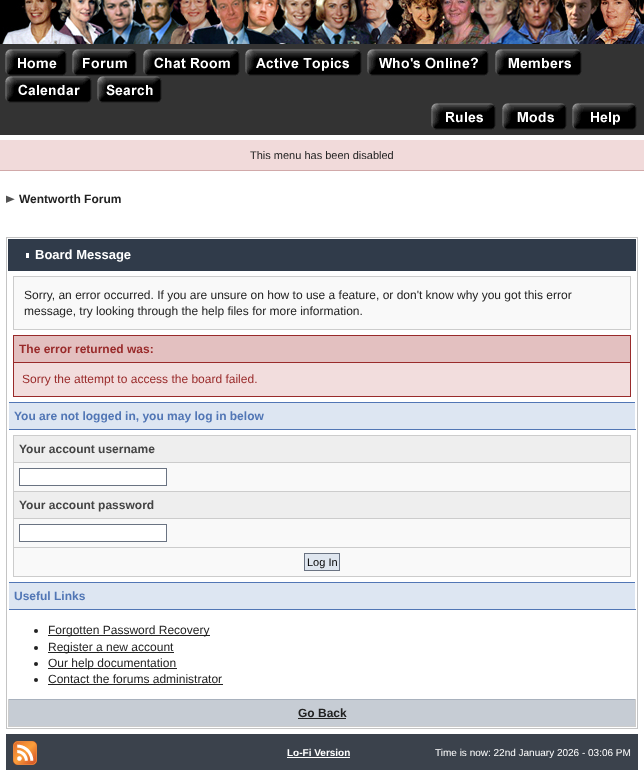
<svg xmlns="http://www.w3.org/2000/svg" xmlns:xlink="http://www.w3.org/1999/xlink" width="644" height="770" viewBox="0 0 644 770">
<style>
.cls-1{font:11px Liberation Sans;fill:#222222}
.cls-2{font:bold 12px Liberation Sans;fill:#222222}
.cls-3{font:bold 13px Liberation Sans;fill:#ffffff}
.cls-4{font:12px Liberation Sans;fill:#222222}
.cls-5{font:bold 12px Liberation Sans;fill:#992a2a}
.cls-6{font:12px Liberation Sans;fill:#992a2a}
.cls-7{font:bold 12px Liberation Sans;fill:#5176b5}
.cls-8{font:bold 12px Liberation Sans;fill:#444444}
.cls-9{font:11px Liberation Sans;fill:#000000}
.cls-10{font:bold 10px Liberation Sans;fill:#ffffff}
.cls-11{font:10px Liberation Sans;fill:#ffffff}
</style>
<rect width="100%" height="100%" fill="#ffffff"/>
<rect fill="#000000" x="0" y="0" width="2" height="44"/>
<image xlink:href="image0.png" x="2" y="0" width="642" height="44"/>
<rect fill="#333333" x="0" y="44" width="644" height="91"/>
<image xlink:href="image1.png" x="5" y="49" width="62" height="27"/>
<image xlink:href="image2.png" x="72" y="49" width="65" height="27"/>
<image xlink:href="image3.png" x="143" y="49" width="97" height="27"/>
<image xlink:href="image4.png" x="245" y="49" width="117" height="27"/>
<image xlink:href="image5.png" x="367" y="49" width="122" height="27"/>
<image xlink:href="image6.png" x="495" y="49" width="87" height="27"/>
<image xlink:href="image7.png" x="5" y="76" width="87" height="27"/>
<image xlink:href="image8.png" x="97" y="76" width="65" height="27"/>
<image xlink:href="image9.png" x="431" y="103" width="65" height="27"/>
<image xlink:href="image10.png" x="502" y="103" width="65" height="27"/>
<image xlink:href="image11.png" x="572" y="103" width="65" height="27"/>
<rect fill="#f1dada" x="0" y="140" width="644" height="30"/>
<rect fill="#d1a9a9" x="0" y="170" width="644" height="1"/>
<image xlink:href="image12.png" x="6" y="195" width="9" height="8"/>
<rect fill="none" stroke="#c4c4c4" x="6.5" y="237.5" width="631" height="491"/>
<rect fill="#303b4a" x="8" y="239" width="628" height="32"/>
<rect fill="#ffffff" x="26" y="253" width="3" height="5"/>
<rect fill="#f9f9f9" stroke="#cccccc" x="13.5" y="276.5" width="617" height="53"/>
<rect fill="#f2dddd" x="14" y="363" width="616" height="33"/>
<rect fill="#992a2a" x="630" y="335" width="1" height="62"/>
<rect fill="#992a2a" x="13" y="396" width="618" height="1"/>
<rect fill="#992a2a" x="13" y="335" width="1" height="62"/>
<rect fill="#e3c0c0" x="14" y="336" width="616" height="26"/>
<rect fill="#992a2a" x="14" y="335" width="616" height="1"/>
<rect fill="#992a2a" x="14" y="362" width="616" height="1"/>
<rect fill="#dde6f2" x="9" y="403" width="626" height="26"/>
<rect fill="#5176b5" x="8" y="402" width="628" height="1"/>
<rect fill="#ffffff" x="635" y="402" width="1" height="1"/>
<rect fill="#5176b5" x="8" y="429" width="628" height="1"/>
<rect fill="#ffffff" x="8" y="402" width="1" height="28"/>
<rect fill="#f9f9f9" x="14" y="463" width="616" height="113"/>
<rect fill="#cccccc" x="630" y="435" width="1" height="142"/>
<rect fill="#cccccc" x="13" y="576" width="618" height="1"/>
<rect fill="#cccccc" x="13" y="435" width="1" height="142"/>
<rect fill="#eeeeee" x="14" y="436" width="616" height="26"/>
<rect fill="#cccccc" x="14" y="435" width="616" height="1"/>
<rect fill="#cccccc" x="14" y="462" width="616" height="1"/>
<rect fill="#ffffff" stroke="#6a7382" x="19.5" y="468.5" width="147" height="17"/>
<rect fill="#eeeeee" x="14" y="492" width="616" height="26"/>
<rect fill="#cccccc" x="14" y="491" width="616" height="1"/>
<rect fill="#cccccc" x="14" y="518" width="616" height="1"/>
<rect fill="#ffffff" stroke="#6a7382" x="19.5" y="524.5" width="147" height="17"/>
<rect fill="#cccccc" x="14" y="547" width="616" height="1"/>
<rect fill="#dfe6ef" stroke="#6a7382" x="304.5" y="553.5" width="35" height="17"/>
<rect fill="#dde6f2" x="9" y="583" width="626" height="26"/>
<rect fill="#5176b5" x="8" y="582" width="628" height="1"/>
<rect fill="#ffffff" x="635" y="582" width="1" height="1"/>
<rect fill="#5176b5" x="8" y="609" width="628" height="1"/>
<rect fill="#ffffff" x="8" y="582" width="1" height="28"/>
<circle fill="#222222" cx="36" cy="631" r="2"/>
<rect fill="#222222" x="48" y="635" width="162" height="1"/>
<circle fill="#222222" cx="36" cy="648" r="2"/>
<rect fill="#222222" x="48" y="652" width="126" height="1"/>
<circle fill="#222222" cx="36" cy="664" r="2"/>
<rect fill="#222222" x="48" y="668" width="129" height="1"/>
<circle fill="#222222" cx="36" cy="680" r="2"/>
<rect fill="#222222" x="48" y="684" width="175" height="1"/>
<rect fill="#c6ccd4" x="9" y="700" width="626" height="26"/>
<rect fill="#a8b1bd" x="8" y="699" width="628" height="1"/>
<rect fill="#cccccc" x="635" y="699" width="1" height="28"/>
<rect fill="#cccccc" x="8" y="726" width="628" height="1"/>
<rect fill="#cccccc" x="8" y="699" width="1" height="28"/>
<rect fill="#222222" x="298" y="718" width="48" height="1"/>
<rect fill="#3b424c" x="6" y="734" width="632" height="36"/>
<image xlink:href="image13.png" x="13" y="741" width="24" height="24"/>
<rect fill="#ffffff" x="287" y="757" width="63" height="1"/>
<text class="cls-1" x="250" y="159">This menu has been disabled</text>
<text class="cls-2" x="19" y="203">Wentworth Forum</text>
<text class="cls-3" x="35" y="259">Board Message</text>
<text class="cls-4"><tspan x="24" y="299">Sorry, an error occurred. If you are unsure on how to use a feature, or don't know why you got this error</tspan><tspan x="24" y="315">message, try looking through the help files for more information.</tspan></text>
<text class="cls-5" x="19" y="353">The error returned was:</text>
<text class="cls-6" x="22" y="383">Sorry the attempt to access the board failed.</text>
<text class="cls-7" x="14" y="420">You are not logged in, you may log in below</text>
<text class="cls-8" x="19" y="453">Your account username</text>
<text class="cls-8" x="19" y="509">Your account password</text>
<text class="cls-9" x="307" y="566">Log In</text>
<text class="cls-7" x="14" y="600">Useful Links</text>
<text class="cls-4"><tspan x="48" y="634">Forgotten Password Recovery</tspan><tspan x="48" y="651">Register a new account</tspan><tspan x="48" y="667">Our help documentation</tspan><tspan x="48" y="683">Contact the forums administrator</tspan></text>
<text class="cls-2" x="298" y="717">Go Back</text>
<text class="cls-10" x="287" y="756">Lo-Fi Version</text>
<text class="cls-11" x="435" y="756">Time is now: 22nd January 2026 - 03:06 PM</text>
</svg>
